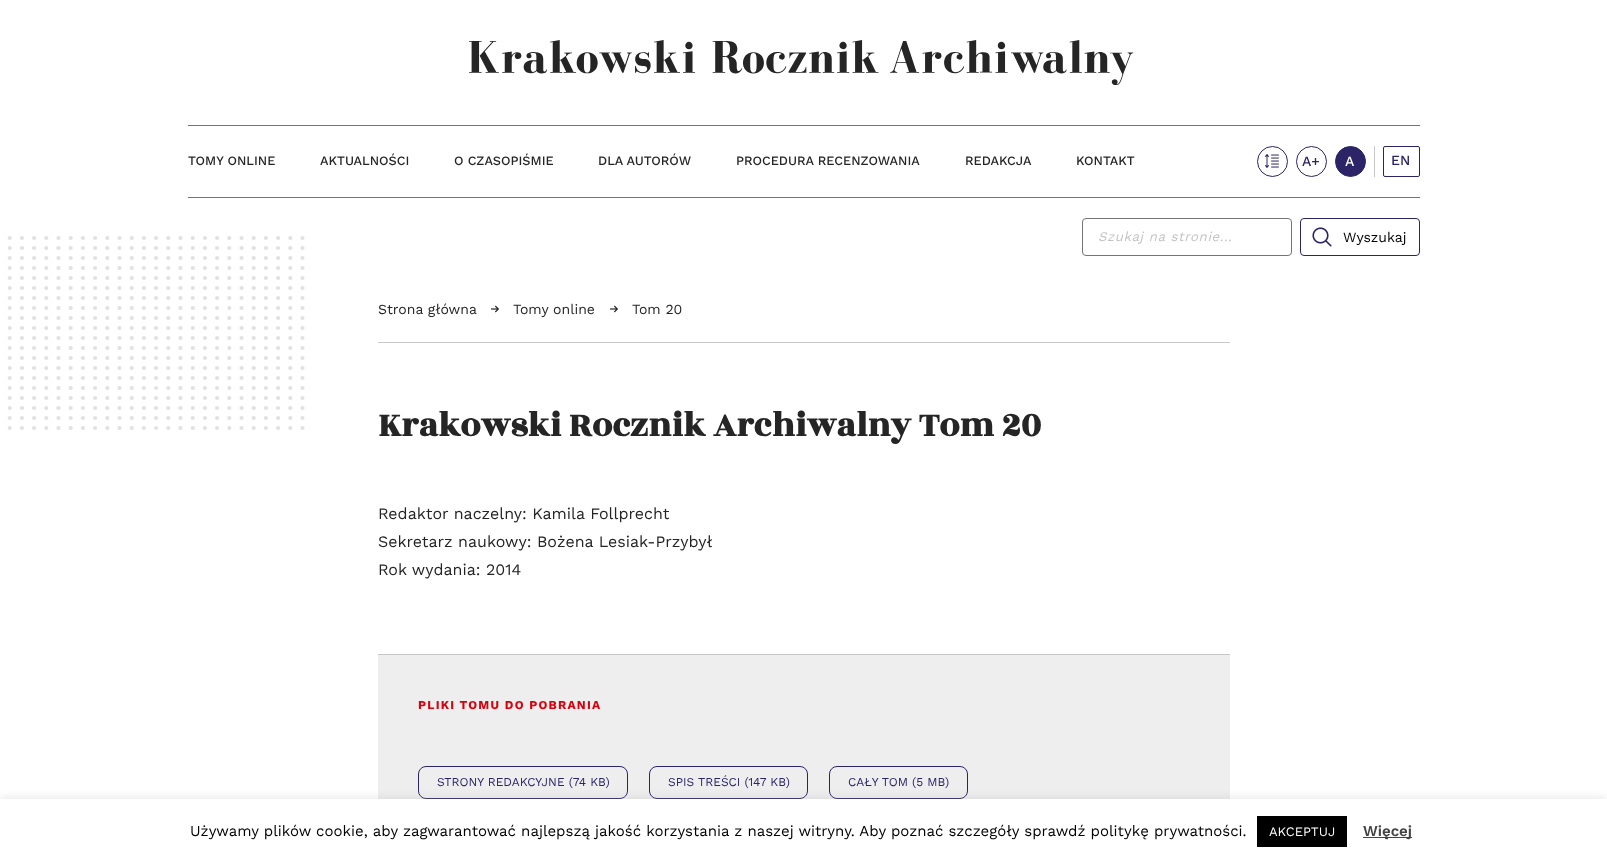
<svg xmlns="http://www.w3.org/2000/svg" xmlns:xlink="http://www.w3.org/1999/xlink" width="1607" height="864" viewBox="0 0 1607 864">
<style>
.cls-1{font:500 12.75px Work Sans;fill:#252525}
.cls-2{font:500 14px Work Sans;fill:#2b2568}
.cls-3{font:500 14px Work Sans;fill:#ffffff}
.cls-4{font:italic 13.25px Work Sans;letter-spacing:0.6px;fill:#c3c3c3}
.cls-5{font:14px Work Sans;fill:#000000}
.cls-6{font:14px Work Sans;fill:#252525}
.cls-7{font:bold 36px Rozha One;fill:#252525}
.cls-8{font:16px Work Sans;fill:#252525}
.cls-9{font:bold 12px Work Sans;letter-spacing:1.2px;fill:#d9000d}
.cls-10{font:12px Work Sans;fill:#2b2568}
.cls-11{font:15px Work Sans;fill:#000000}
.cls-12{font:13px Work Sans;fill:#ffffff}
.cls-13{font:600 15px Work Sans;fill:#444444}
</style>
<rect width="100%" height="100%" fill="#ffffff"/>
<image xlink:href="image0.png" x="469" y="40" width="665" height="45"/>
<rect fill="#757474" x="188" y="125" width="1232" height="1"/>
<rect fill="#757474" x="188" y="197" width="1232" height="1"/>
<rect fill="#c7c7c7" x="1374" y="146" width="1" height="31"/>
<circle fill="none" stroke="#2b2568" cx="1272.5" cy="161.5" r="15"/>
<image xlink:href="image1.png" x="1265" y="154" width="14" height="14"/>
<circle fill="none" stroke="#2b2568" cx="1311.5" cy="161.5" r="15"/>
<circle fill="#2b2568" stroke="#2b2568" cx="1350.5" cy="161.5" r="15"/>
<rect fill="none" stroke="#2b2568" x="1383.5" y="146.5" width="36" height="30" rx="1.5"/>
<rect fill="none" stroke="#757474" x="1082.5" y="218.5" width="209" height="37" rx="3.5"/>
<rect fill="none" stroke="#2b2568" x="1300.5" y="218.5" width="119" height="37" rx="3.5"/>
<image xlink:href="image2.png" x="1312" y="227" width="20" height="20"/>
<image xlink:href="image3.png" x="7" y="236" width="298" height="194"/>
<rect fill="#c7c7c7" x="378" y="342" width="852" height="1"/>
<image xlink:href="image4.png" x="491" y="305" width="8" height="8"/>
<image xlink:href="image4.png" x="610" y="305" width="8" height="8"/>
<rect fill="#eeeeee" x="378" y="655" width="852" height="144"/>
<rect fill="#c7c7c7" x="378" y="654" width="852" height="1"/>
<rect fill="none" stroke="#2b2568" x="418.5" y="766.5" width="209" height="32" rx="7.5"/>
<rect fill="none" stroke="#2b2568" x="649.5" y="766.5" width="158" height="32" rx="7.5"/>
<rect fill="none" stroke="#2b2568" x="829.5" y="766.5" width="138" height="32" rx="7.5"/>
<rect fill="#acabab" fill-opacity="0.3" filter="blur(5px)" x="0" y="798" width="1607" height="65"/>
<rect fill="#ffffff" x="0" y="799" width="1607" height="65"/>
<rect fill="#000000" x="1257" y="816" width="90" height="31"/>
<rect fill="#444444" x="1363" y="837" width="49" height="1"/>
<text class="cls-1" x="188" y="165">TOMY ONLINE</text>
<text class="cls-1" x="320" y="165">AKTUALNOŚCI</text>
<text class="cls-1" x="454" y="165">O CZASOPIŚMIE</text>
<text class="cls-1" x="598" y="165">DLA AUTORÓW</text>
<text class="cls-1" x="736" y="165">PROCEDURA RECENZOWANIA</text>
<text class="cls-1" x="965" y="165">REDAKCJA</text>
<text class="cls-1" x="1076" y="165">KONTAKT</text>
<text class="cls-2" x="1302" y="166">A+</text>
<text class="cls-3" x="1345" y="166">A</text>
<text class="cls-2" x="1391" y="165">EN</text>
<text class="cls-4" x="1098" y="241">Szukaj na stronie...</text>
<text class="cls-5" x="1343" y="242">Wyszukaj</text>
<text class="cls-6" x="378" y="314">Strona główna</text>
<text class="cls-6" x="513" y="314">Tomy online</text>
<text class="cls-6" x="632" y="314">Tom 20</text>
<text class="cls-7" x="378" y="436">Krakowski Rocznik Archiwalny Tom 20</text>
<text class="cls-8"><tspan x="378" y="519">Redaktor naczelny: Kamila Follprecht</tspan><tspan x="378" y="547">Sekretarz naukowy: Bożena Lesiak-Przybył</tspan><tspan x="378" y="575">Rok wydania: 2014</tspan></text>
<text class="cls-9" x="418" y="709">PLIKI TOMU DO POBRANIA</text>
<text class="cls-10" x="437" y="786">STRONY REDAKCYJNE (74 KB)</text>
<text class="cls-10" x="668" y="786">SPIS TREŚCI (147 KB)</text>
<text class="cls-10" x="848" y="786">CAŁY TOM (5 MB)</text>
<text class="cls-11" x="190" y="836">Używamy plików cookie, aby zagwarantować najlepszą jakość korzystania z naszej witryny. Aby poznać szczegóły sprawdź politykę prywatności.</text>
<text class="cls-12" x="1269" y="836">AKCEPTUJ</text>
<text class="cls-13" x="1363" y="836">Więcej</text>
</svg>
